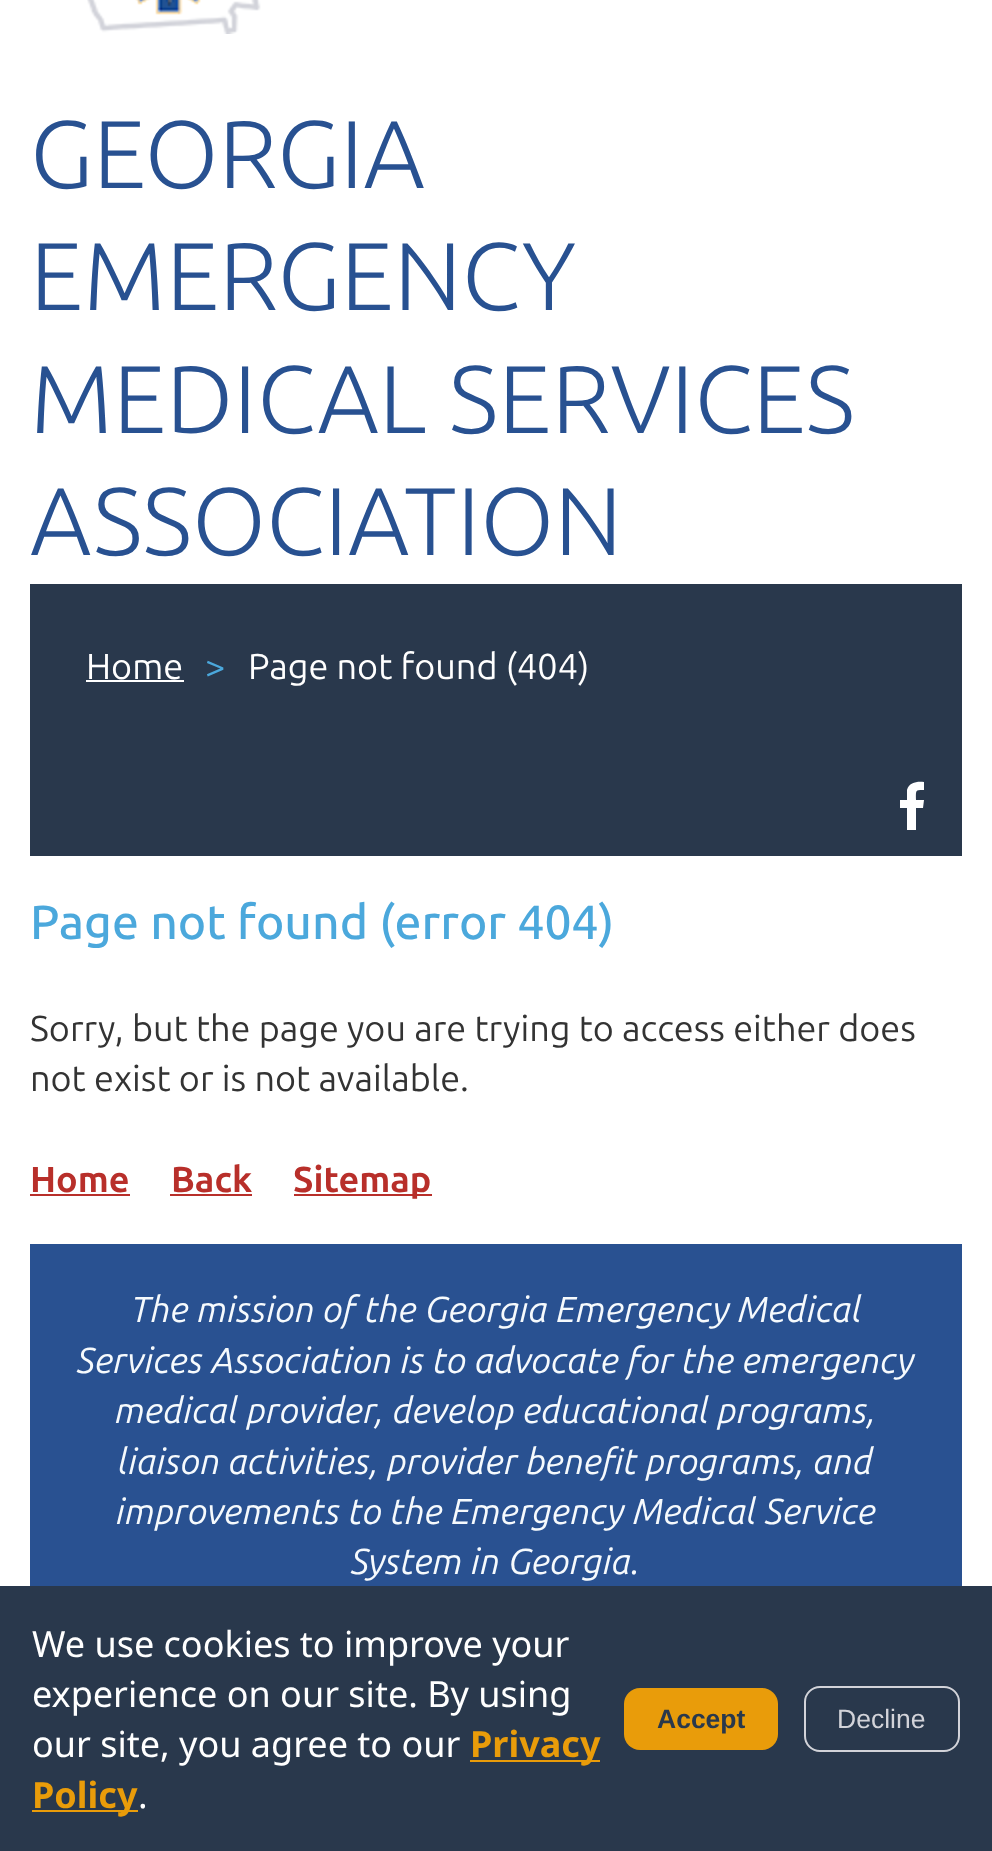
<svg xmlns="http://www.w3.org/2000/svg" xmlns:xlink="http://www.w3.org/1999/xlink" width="992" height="1851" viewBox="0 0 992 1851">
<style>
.cls-1{font:300 96px Ubuntu;fill:#285191}
.cls-2{font:36px Ubuntu;fill:#ffffff}
.cls-3{font:36px Ubuntu;fill:#4ba8dc}
.cls-4{font:500 48px Ubuntu;fill:#4ba8dc}
.cls-5{font:36px Ubuntu;fill:#333333}
.cls-6{font:bold 36px Ubuntu;fill:#b82f2a}
.cls-7{font:italic 36px Ubuntu;fill:#f6fafd}
.cls-8{font:36px Noto Sans;fill:#ffffff}
.cls-9{font:bold 36px Noto Sans;fill:#e99c0a}
.cls-10{font:bold 26.5px Liberation Sans;fill:#29384c}
.cls-11{font:26.5px Liberation Sans;fill:#d2d3d9}
</style>
<rect width="100%" height="100%" fill="#ffffff"/>
<image xlink:href="image0.png" x="87" y="0" width="174" height="34"/>
<rect fill="#29384c" x="30" y="584" width="932" height="272"/>
<rect fill="#ffffff" x="86" y="680" width="98" height="2"/>
<path fill="#ffffff" d="M924 790C915 790 916 790 916 800H924L923 808H916V830H907V808H900V800H907V790C909 782 918 781 924 782Z"/>
<rect fill="#b82f2a" x="30" y="1194" width="100" height="2"/>
<rect fill="#b82f2a" x="170" y="1194" width="82" height="2"/>
<rect fill="#b82f2a" x="294" y="1194" width="138" height="2"/>
<rect fill="#295191" x="30" y="1244" width="932" height="342"/>
<rect fill="#29384c" x="0" y="1586" width="992" height="265"/>
<rect fill="#e99c0a" x="470" y="1760" width="130" height="2"/>
<rect fill="#e99c0a" x="32" y="1810" width="106" height="2"/>
<rect fill="#e99c0a" x="624" y="1688" width="154" height="62" rx="16"/>
<rect fill="none" stroke="#d2d3d9" stroke-width="2" x="805" y="1687" width="154" height="64" rx="15"/>
<text class="cls-1"><tspan x="30" y="188">GEORGIA</tspan><tspan x="30" y="310">EMERGENCY</tspan><tspan x="30" y="433">MEDICAL SERVICES</tspan><tspan x="30" y="555">ASSOCIATION</tspan></text>
<text class="cls-2" x="86" y="679">Home</text>
<text class="cls-3" x="205" y="679">&gt;</text>
<text class="cls-2" x="248" y="679">Page not found (404)</text>
<text class="cls-4" x="30" y="939">Page not found (error 404)</text>
<text class="cls-5"><tspan x="30" y="1041">Sorry, but the page you are trying to access either does</tspan><tspan x="30" y="1091">not exist or is not available.</tspan></text>
<text class="cls-6" x="30" y="1192">Home</text>
<text class="cls-6" x="171" y="1192">Back</text>
<text class="cls-6" x="293" y="1192">Sitemap</text>
<text class="cls-7" x="131" y="1322">The mission of the Georgia Emergency Medical</text>
<text class="cls-7" x="77" y="1373">Services Association is to advocate for the emergency</text>
<text class="cls-7" x="115" y="1423">medical provider, develop educational programs,</text>
<text class="cls-7" x="118" y="1474">liaison activities, provider benefit programs, and</text>
<text class="cls-7" x="116" y="1524">improvements to the Emergency Medical Service</text>
<text class="cls-7" x="351" y="1574">System in Georgia.</text>
<text class="cls-8"><tspan x="32" y="1657">We use cookies to improve your</tspan><tspan x="32" y="1707">experience on our site. By using</tspan><tspan x="32" y="1757">our site, you agree to our</tspan></text>
<text class="cls-9" x="470" y="1757">Privacy</text>
<text class="cls-9" x="32" y="1808">Policy</text>
<text class="cls-8" x="138" y="1808">.</text>
<text class="cls-10" x="657" y="1728">Accept</text>
<text class="cls-11" x="837" y="1728">Decline</text>
</svg>
